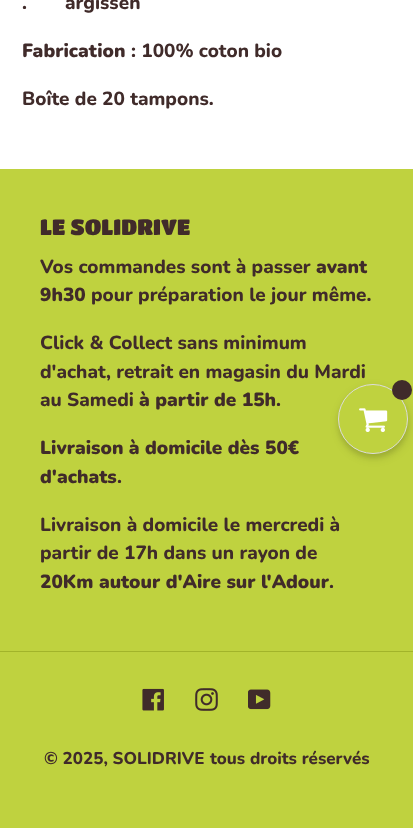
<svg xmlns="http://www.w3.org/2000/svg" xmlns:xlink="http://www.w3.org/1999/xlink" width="413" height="828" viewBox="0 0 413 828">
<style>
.cls-1{font:800 19px Nunito;fill:#402b2a}
.cls-2{font:900 19px Nunito;fill:#402b2a}
.cls-3{font:22px Titan One;fill:#402b2a}
.cls-4{font:800 17px Nunito;fill:#402b2a}
</style>
<rect width="100%" height="100%" fill="#ffffff"/>
<rect fill="#bfd23f" x="0" y="169" width="413" height="659"/>
<rect fill="#a2b42a" x="0" y="651" width="413" height="1"/>
<image xlink:href="image0.png" x="142" y="688" width="22" height="23"/>
<image xlink:href="image1.png" x="195" y="688" width="23" height="23"/>
<image xlink:href="image2.png" x="248" y="689" width="23" height="21"/>
<rect fill="#000000" fill-opacity="0.08" filter="blur(2px)" x="338" y="388" width="70" height="70" rx="35"/>
<rect fill="#000000" fill-opacity="0.12" filter="blur(5px)" x="339" y="388" width="70" height="70" rx="35"/>
<circle fill="#bfd23f" stroke="#dddddd" cx="373" cy="419" r="34.5"/>
<circle fill="#402b2a" cx="402" cy="390" r="10"/>
<image xlink:href="image3.png" x="359" y="408" width="29" height="24"/>
<text class="cls-1" x="22" y="9">.</text>
<text class="cls-1" x="65" y="9">argissen</text>
<text class="cls-2" x="22" y="57">Fabrication</text>
<text class="cls-1" x="131" y="57">: 100% coton bio</text>
<text class="cls-1" x="22" y="105">Boîte de 20 tampons.</text>
<text class="cls-3" x="40" y="235">LE SOLIDRIVE</text>
<text class="cls-1" x="40" y="273">Vos commandes sont à passer</text>
<text class="cls-2" x="316" y="273">avant</text>
<text class="cls-2" x="40" y="301">9h30</text>
<text class="cls-1" x="91" y="301">pour préparation le jour même.</text>
<text class="cls-1"><tspan x="40" y="349">Click &amp; Collect sans minimum</tspan><tspan x="40" y="378">d'achat, retrait en magasin du Mardi</tspan><tspan x="40" y="406">au Samedi</tspan></text>
<text class="cls-2" x="139" y="406">à partir de 15h</text>
<text class="cls-1" x="276" y="406">.</text>
<text class="cls-2"><tspan x="40" y="454">Livraison à domicile dès 50€</tspan><tspan x="40" y="483">d'achats</tspan></text>
<text class="cls-1" x="117" y="483">.</text>
<text class="cls-1"><tspan x="40" y="531">Livraison à domicile le mercredi à</tspan><tspan x="40" y="559">partir de 17h dans un rayon de</tspan></text>
<text class="cls-2" x="40" y="588">20Km autour d'Aire sur l'Adour</text>
<text class="cls-1" x="329" y="588">.</text>
<text class="cls-4" x="44" y="764">© 2025, SOLIDRIVE</text>
<text class="cls-4" x="210" y="764">tous droits réservés</text>
</svg>
